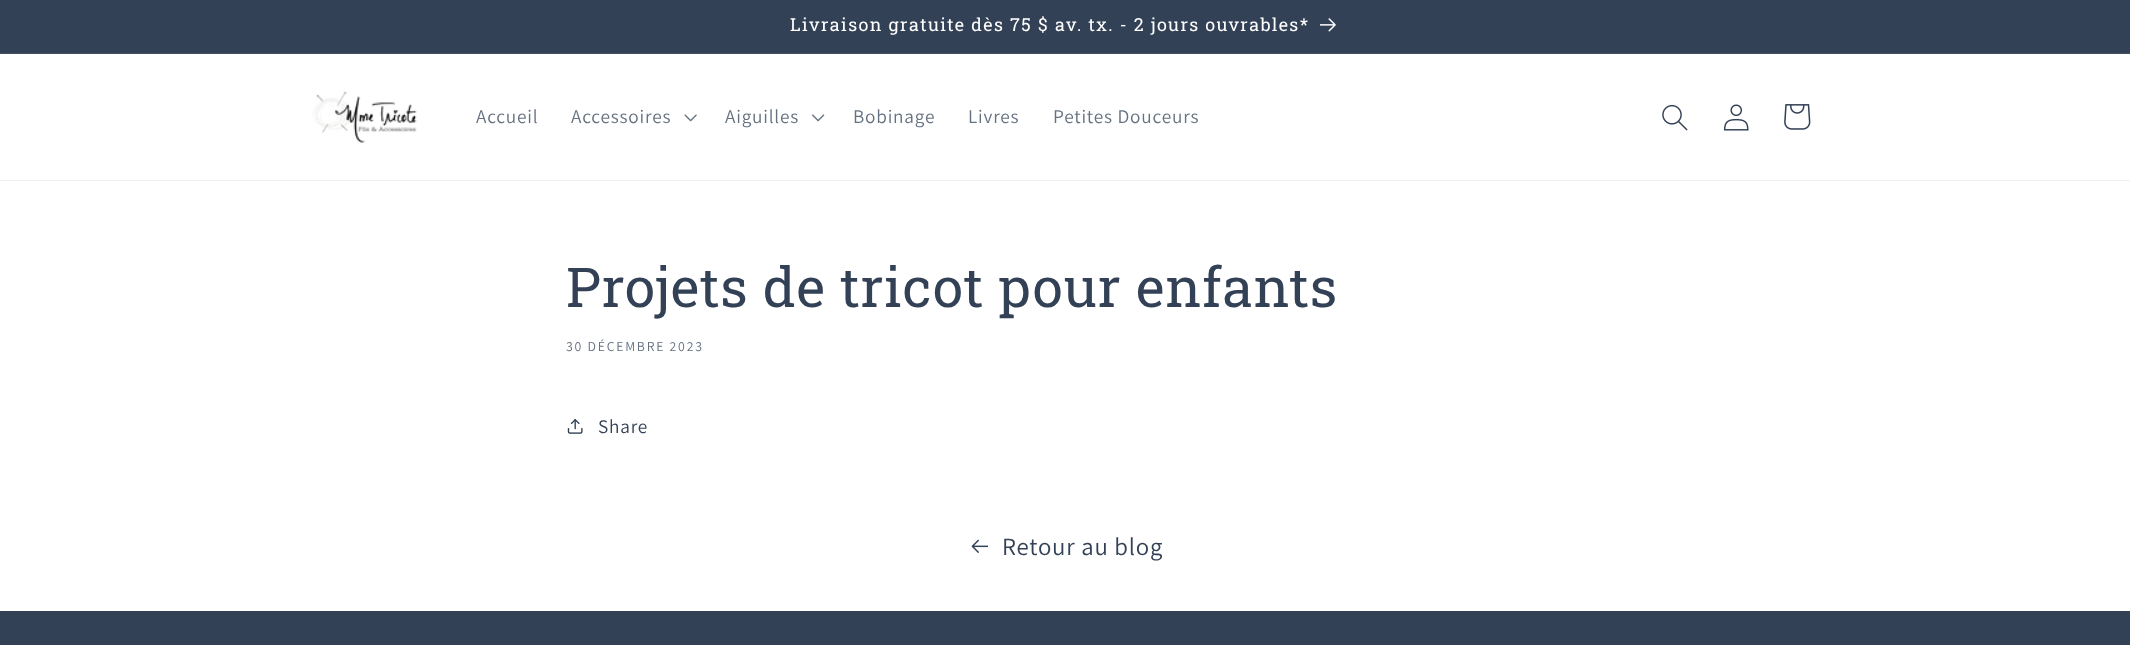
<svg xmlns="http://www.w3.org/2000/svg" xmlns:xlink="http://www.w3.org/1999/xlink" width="2130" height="645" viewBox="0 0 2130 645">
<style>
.cls-1{font:17.9px Roboto Slab;letter-spacing:1.38px;fill:#ffffff}
.cls-2{font:19.25px Assistant;letter-spacing:0.8px;fill:#667180}
.cls-3{font:55px Roboto Slab;letter-spacing:0.8px;fill:#334156}
.cls-4{font:13.75px Assistant;letter-spacing:1.75px;fill:#667180}
.cls-5{font:19.25px Assistant;letter-spacing:0.8px;fill:#334156}
.cls-6{font:24.75px Assistant;letter-spacing:0.8px;fill:#334156}
</style>
<rect width="100%" height="100%" fill="#ffffff"/>
<rect fill="#334156" x="0" y="0" width="2130" height="53"/>
<rect fill="#435064" x="0" y="53" width="2130" height="1"/>
<image xlink:href="image0.png" x="1320" y="18" width="16" height="14"/>
<rect fill="#eff0f1" x="0" y="180" width="2130" height="1"/>
<image xlink:href="image1.png" x="312" y="91" width="105" height="52"/>
<image xlink:href="image2.png" x="684" y="114" width="13" height="8"/>
<image xlink:href="image3.png" x="812" y="114" width="13" height="8"/>
<image xlink:href="image4.png" x="1662" y="104" width="26" height="27"/>
<image xlink:href="image5.png" x="1723" y="104" width="26" height="27"/>
<image xlink:href="image6.png" x="1784" y="104" width="27" height="26"/>
<image xlink:href="image7.png" x="567" y="419" width="16" height="15"/>
<image xlink:href="image8.png" x="971" y="539" width="17" height="14"/>
<rect fill="#334156" x="0" y="611" width="2130" height="34"/>
<text class="cls-1" x="790" y="31">Livraison gratuite dès 75 $ av. tx. - 2 jours ouvrables*</text>
<text class="cls-2" x="476" y="123">Accueil</text>
<text class="cls-2" x="571" y="123">Accessoires</text>
<text class="cls-2" x="725" y="123">Aiguilles</text>
<text class="cls-2" x="853" y="123">Bobinage</text>
<text class="cls-2" x="968" y="123">Livres</text>
<text class="cls-2" x="1053" y="123">Petites Douceurs</text>
<text class="cls-3" x="566" y="307">Projets de tricot pour enfants</text>
<text class="cls-4" x="566" y="351">30 DÉCEMBRE 2023</text>
<text class="cls-5" x="598" y="433">Share</text>
<text class="cls-6" x="1002" y="555">Retour au blog</text>
</svg>
